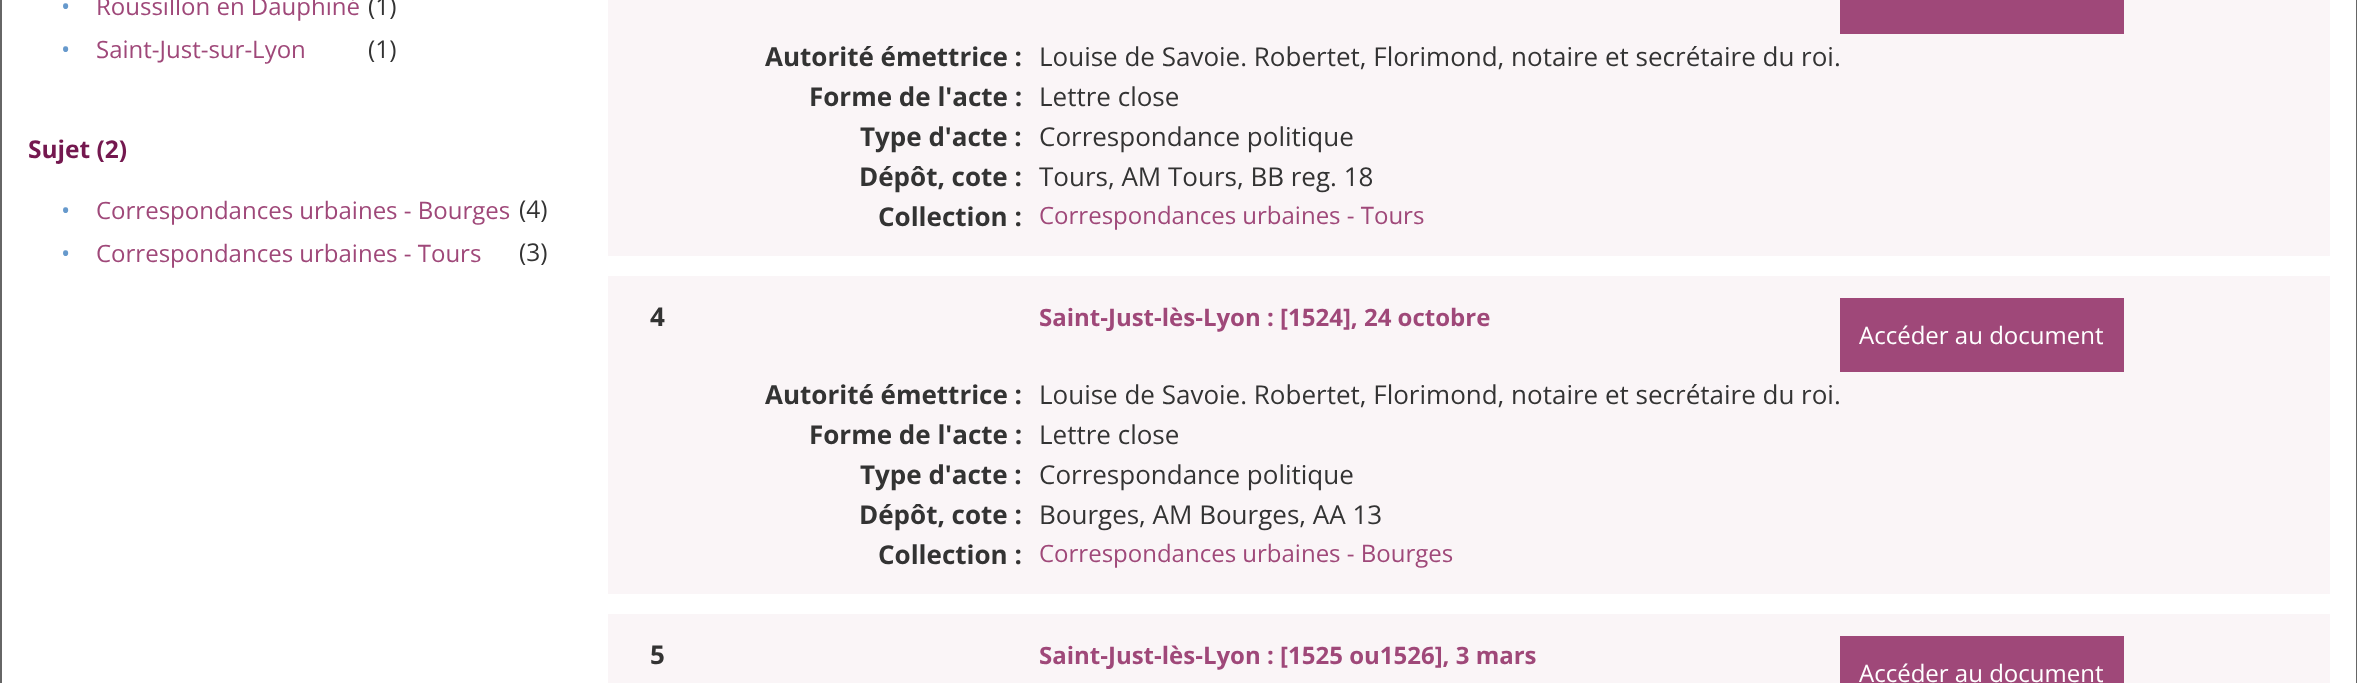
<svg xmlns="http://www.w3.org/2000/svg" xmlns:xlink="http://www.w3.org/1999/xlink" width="2357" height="683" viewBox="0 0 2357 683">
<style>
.cls-1{font:24.5px Open Sans;fill:#6699cc}
.cls-2{font:24px Open Sans;fill:#9f4879}
.cls-3{font:24.5px Open Sans;fill:#333333}
.cls-4{font:bold 24.5px Open Sans;fill:#74184f}
.cls-5{font:bold 26px Open Sans;fill:#333333}
.cls-6{font:26px Open Sans;fill:#333333}
.cls-7{font:bold 24px Open Sans;fill:#9f4879}
.cls-8{font:24px Open Sans;fill:#ffffff}
</style>
<rect width="100%" height="100%" fill="#666666"/>
<rect fill="#ffffff" x="2" y="0" width="2354" height="683"/>
<rect fill="#faf5f7" x="608" y="0" width="1722" height="256"/>
<rect fill="#9f4879" x="1840" y="0" width="284" height="34"/>
<rect fill="#faf5f7" x="608" y="276" width="1722" height="318"/>
<rect fill="#9f4879" x="1840" y="298" width="284" height="74"/>
<rect fill="#faf5f7" x="608" y="614" width="1722" height="69"/>
<rect fill="#9f4879" x="1840" y="636" width="284" height="47"/>
<text class="cls-1" x="61" y="15">•</text>
<text class="cls-2" x="96" y="15">Roussillon en Dauphiné</text>
<text class="cls-3" x="368" y="15">(1)</text>
<text class="cls-1" x="61" y="58">•</text>
<text class="cls-2" x="96" y="58">Saint-Just-sur-Lyon</text>
<text class="cls-3" x="368" y="58">(1)</text>
<text class="cls-4" x="28" y="158">Sujet (2)</text>
<text class="cls-1" x="61" y="219">•</text>
<text class="cls-2" x="96" y="219">Correspondances urbaines - Bourges</text>
<text class="cls-3" x="519" y="218">(4)</text>
<text class="cls-1" x="61" y="262">•</text>
<text class="cls-2" x="96" y="262">Correspondances urbaines - Tours</text>
<text class="cls-3" x="519" y="261">(3)</text>
<text class="cls-5" x="765" y="66">Autorité émettrice :</text>
<text class="cls-6" x="1039" y="66">Louise de Savoie. Robertet, Florimond, notaire et secrétaire du roi.</text>
<text class="cls-5" x="809" y="106">Forme de l'acte :</text>
<text class="cls-6" x="1039" y="106">Lettre close</text>
<text class="cls-5" x="860" y="146">Type d'acte :</text>
<text class="cls-6" x="1039" y="146">Correspondance politique</text>
<text class="cls-5" x="859" y="186">Dépôt, cote :</text>
<text class="cls-6" x="1039" y="186">Tours, AM Tours, BB reg. 18</text>
<text class="cls-5" x="878" y="226">Collection :</text>
<text class="cls-2" x="1039" y="224">Correspondances urbaines - Tours</text>
<text class="cls-5" x="650" y="326">4</text>
<text class="cls-7" x="1039" y="326">Saint-Just-lès-Lyon : [1524], 24 octobre</text>
<text class="cls-8" x="1859" y="344">Accéder au document</text>
<text class="cls-5" x="765" y="404">Autorité émettrice :</text>
<text class="cls-6" x="1039" y="404">Louise de Savoie. Robertet, Florimond, notaire et secrétaire du roi.</text>
<text class="cls-5" x="809" y="444">Forme de l'acte :</text>
<text class="cls-6" x="1039" y="444">Lettre close</text>
<text class="cls-5" x="860" y="484">Type d'acte :</text>
<text class="cls-6" x="1039" y="484">Correspondance politique</text>
<text class="cls-5" x="859" y="524">Dépôt, cote :</text>
<text class="cls-6" x="1039" y="524">Bourges, AM Bourges, AA 13</text>
<text class="cls-5" x="878" y="564">Collection :</text>
<text class="cls-2" x="1039" y="562">Correspondances urbaines - Bourges</text>
<text class="cls-5" x="650" y="664">5</text>
<text class="cls-7" x="1039" y="664">Saint-Just-lès-Lyon : [1525 ou1526], 3 mars</text>
<text class="cls-8" x="1859" y="682">Accéder au document</text>
</svg>
